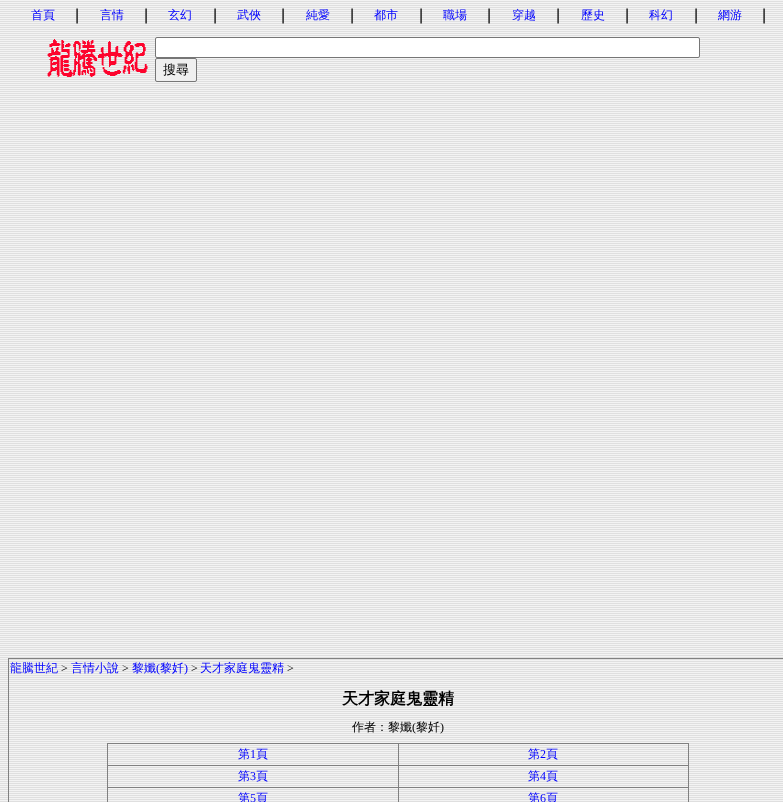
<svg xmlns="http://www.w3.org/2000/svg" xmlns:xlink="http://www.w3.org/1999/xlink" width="783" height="802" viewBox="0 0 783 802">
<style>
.cls-1{font:500 12px WenQuanYi Zen Hei;fill:#0000ff}
.cls-2{font:16px Liberation Sans;fill:#000000}
.cls-3{font:500 13px WenQuanYi Zen Hei;fill:#000000}
.cls-4{font:12px Liberation Serif;fill:#000000}
.cls-5{font:12px Liberation Serif;fill:#0000ff}
.cls-6{font:bold 16px WenQuanYi Zen Hei;fill:#000000}
.cls-7{font:500 12px WenQuanYi Zen Hei;fill:#000000}
</style>
<rect width="100%" height="100%" fill="#ffffff"/>
<image xlink:href="image0.png" x="0" y="0" width="783" height="802"/>
<image xlink:href="image1.png" x="47" y="39" width="101" height="38"/>
<rect fill="#ffffff" stroke="#767676" x="155.5" y="37.5" width="544" height="20" rx="1.5"/>
<rect fill="#efefef" stroke="#767676" x="155.5" y="58.5" width="41" height="23" rx="1.5"/>
<rect fill="#808080" x="8" y="658" width="775" height="1"/>
<rect fill="#808080" x="8" y="658" width="1" height="144"/>
<rect fill="#808080" x="107" y="743" width="582" height="1"/>
<rect fill="#808080" x="688" y="743" width="1" height="59"/>
<rect fill="#808080" x="107" y="743" width="1" height="59"/>
<rect fill="#808080" x="398" y="765" width="291" height="1"/>
<rect fill="#808080" x="398" y="787" width="291" height="1"/>
<rect fill="#808080" x="398" y="787" width="1" height="15"/>
<rect fill="#808080" x="107" y="787" width="292" height="1"/>
<rect fill="#808080" x="398" y="765" width="1" height="23"/>
<rect fill="#808080" x="107" y="765" width="292" height="1"/>
<rect fill="#808080" x="398" y="743" width="1" height="23"/>
<text class="cls-1" x="31" y="19">首頁</text>
<text class="cls-2" x="75" y="20">|</text>
<text class="cls-1" x="100" y="19">言情</text>
<text class="cls-2" x="144" y="20">|</text>
<text class="cls-1" x="168" y="19">玄幻</text>
<text class="cls-2" x="213" y="20">|</text>
<text class="cls-1" x="237" y="19">武俠</text>
<text class="cls-2" x="281" y="20">|</text>
<text class="cls-1" x="306" y="19">純愛</text>
<text class="cls-2" x="350" y="20">|</text>
<text class="cls-1" x="374" y="19">都市</text>
<text class="cls-2" x="419" y="20">|</text>
<text class="cls-1" x="443" y="19">職場</text>
<text class="cls-2" x="487" y="20">|</text>
<text class="cls-1" x="512" y="19">穿越</text>
<text class="cls-2" x="556" y="20">|</text>
<text class="cls-1" x="581" y="19">歷史</text>
<text class="cls-2" x="625" y="20">|</text>
<text class="cls-1" x="649" y="19">科幻</text>
<text class="cls-2" x="694" y="20">|</text>
<text class="cls-1" x="718" y="19">網游</text>
<text class="cls-2" x="762" y="20">|</text>
<text class="cls-3" x="163" y="74">搜尋</text>
<text class="cls-1" x="10" y="672">龍騰世紀</text>
<text class="cls-4" x="61" y="672">&gt;</text>
<text class="cls-1" x="71" y="672">言情小說</text>
<text class="cls-4" x="122" y="672">&gt;</text>
<text class="cls-1" x="132" y="672">黎孅</text>
<text class="cls-5" x="156" y="672">(</text>
<text class="cls-1" x="160" y="672">黎奷</text>
<text class="cls-5" x="184" y="672">)</text>
<text class="cls-4" x="191" y="672">&gt;</text>
<text class="cls-1" x="200" y="672">天才家庭鬼靈精</text>
<text class="cls-4" x="287" y="672">&gt;</text>
<text class="cls-6" x="342" y="704">天才家庭鬼靈精</text>
<text class="cls-7" x="352" y="731">作者：黎孅</text>
<text class="cls-4" x="412" y="731">(</text>
<text class="cls-7" x="416" y="731">黎奷</text>
<text class="cls-4" x="440" y="731">)</text>
<text class="cls-1" x="238" y="758">第</text>
<text class="cls-5" x="250" y="758">1</text>
<text class="cls-1" x="256" y="758">頁</text>
<text class="cls-1" x="528" y="758">第</text>
<text class="cls-5" x="540" y="758">2</text>
<text class="cls-1" x="546" y="758">頁</text>
<text class="cls-1" x="238" y="780">第</text>
<text class="cls-5" x="250" y="780">3</text>
<text class="cls-1" x="256" y="780">頁</text>
<text class="cls-1" x="528" y="780">第</text>
<text class="cls-5" x="540" y="780">4</text>
<text class="cls-1" x="546" y="780">頁</text>
<text class="cls-1" x="238" y="802">第</text>
<text class="cls-5" x="250" y="802">5</text>
<text class="cls-1" x="256" y="802">頁</text>
<text class="cls-1" x="528" y="802">第</text>
<text class="cls-5" x="540" y="802">6</text>
<text class="cls-1" x="546" y="802">頁</text>
</svg>
